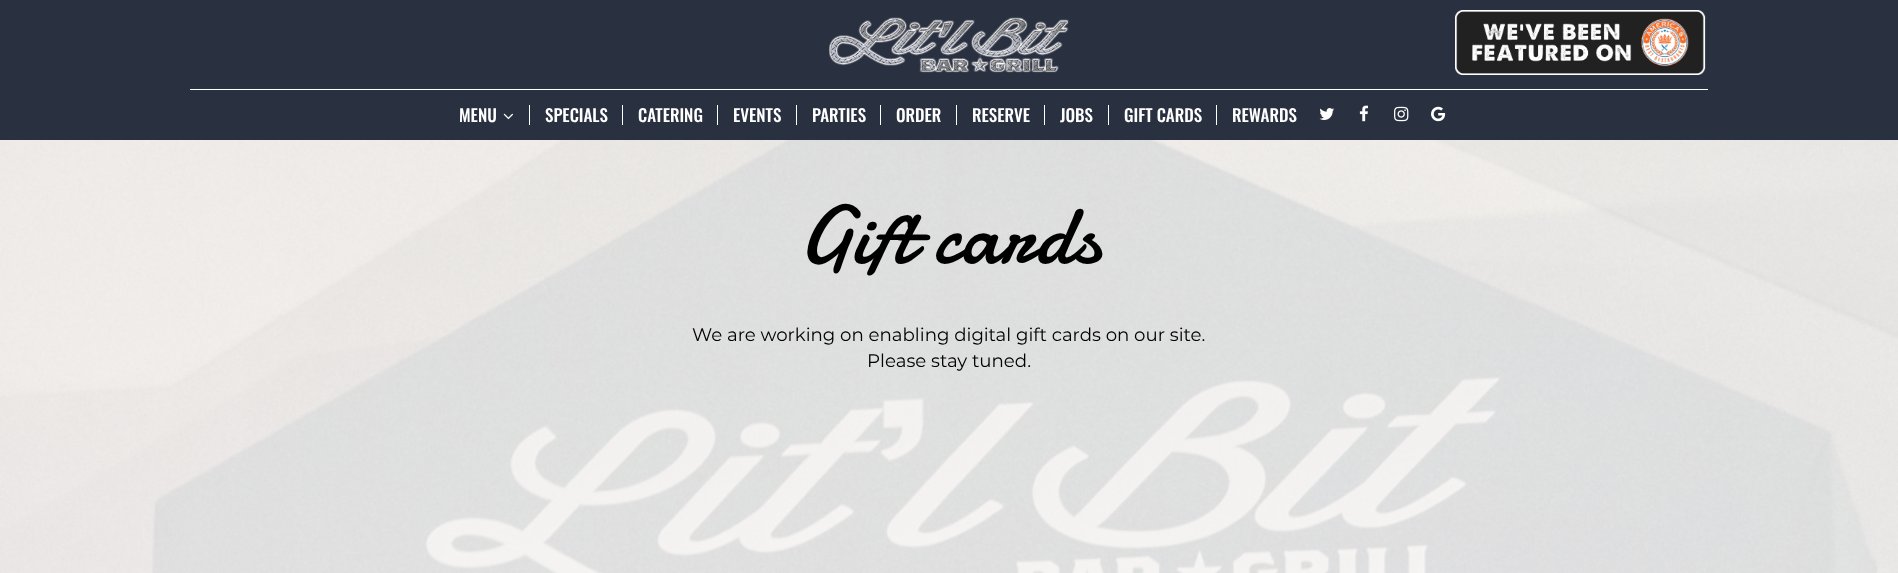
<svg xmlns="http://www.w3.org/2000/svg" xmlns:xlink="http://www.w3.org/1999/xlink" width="1898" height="573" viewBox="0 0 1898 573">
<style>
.cls-1{font:500 17px Oswald;fill:#ffffff}
.cls-2{font:84px Damion;fill:#000000}
.cls-3{font:100 18.2px Montserrat;fill:#000000}
</style>
<rect width="100%" height="100%" fill="#ffffff"/>
<rect fill="#293040" x="0" y="0" width="1898" height="140"/>
<rect fill="#ffffff" x="190" y="89" width="1518" height="1"/>
<image xlink:href="image0.png" x="829" y="17" width="240" height="56"/>
<image xlink:href="image1.png" x="1455" y="10" width="251" height="65"/>
<rect fill="#ffffff" x="529" y="105" width="1" height="20"/>
<image xlink:href="image2.png" x="503" y="113" width="10" height="7"/>
<rect fill="#ffffff" x="622" y="105" width="1" height="20"/>
<rect fill="#ffffff" x="717" y="105" width="1" height="20"/>
<rect fill="#ffffff" x="796" y="105" width="1" height="20"/>
<rect fill="#ffffff" x="880" y="105" width="1" height="20"/>
<rect fill="#ffffff" x="956" y="105" width="1" height="20"/>
<rect fill="#ffffff" x="1044" y="105" width="1" height="20"/>
<rect fill="#ffffff" x="1108" y="105" width="1" height="20"/>
<rect fill="#ffffff" x="1216" y="105" width="1" height="20"/>
<image xlink:href="image3.png" x="1319" y="108" width="15" height="12"/>
<image xlink:href="image4.png" x="1359" y="105" width="9" height="17"/>
<image xlink:href="image5.png" x="1394" y="106" width="15" height="16"/>
<image xlink:href="image6.png" x="1431" y="106" width="15" height="16"/>
<image xlink:href="image7.png" x="0" y="140" width="1898" height="433"/>
<text class="cls-1" x="459" y="122">MENU</text>
<text class="cls-1" x="545" y="122">SPECIALS</text>
<text class="cls-1" x="638" y="122">CATERING</text>
<text class="cls-1" x="733" y="122">EVENTS</text>
<text class="cls-1" x="812" y="122">PARTIES</text>
<text class="cls-1" x="896" y="122">ORDER</text>
<text class="cls-1" x="972" y="122">RESERVE</text>
<text class="cls-1" x="1060" y="122">JOBS</text>
<text class="cls-1" x="1124" y="122">GIFT CARDS</text>
<text class="cls-1" x="1232" y="122">REWARDS</text>
<text class="cls-2" x="798" y="263">Gift cards</text>
<text class="cls-3" x="692" y="341">We are working on enabling digital gift cards on our site.</text>
<text class="cls-3" x="867" y="367">Please stay tuned.</text>
</svg>
